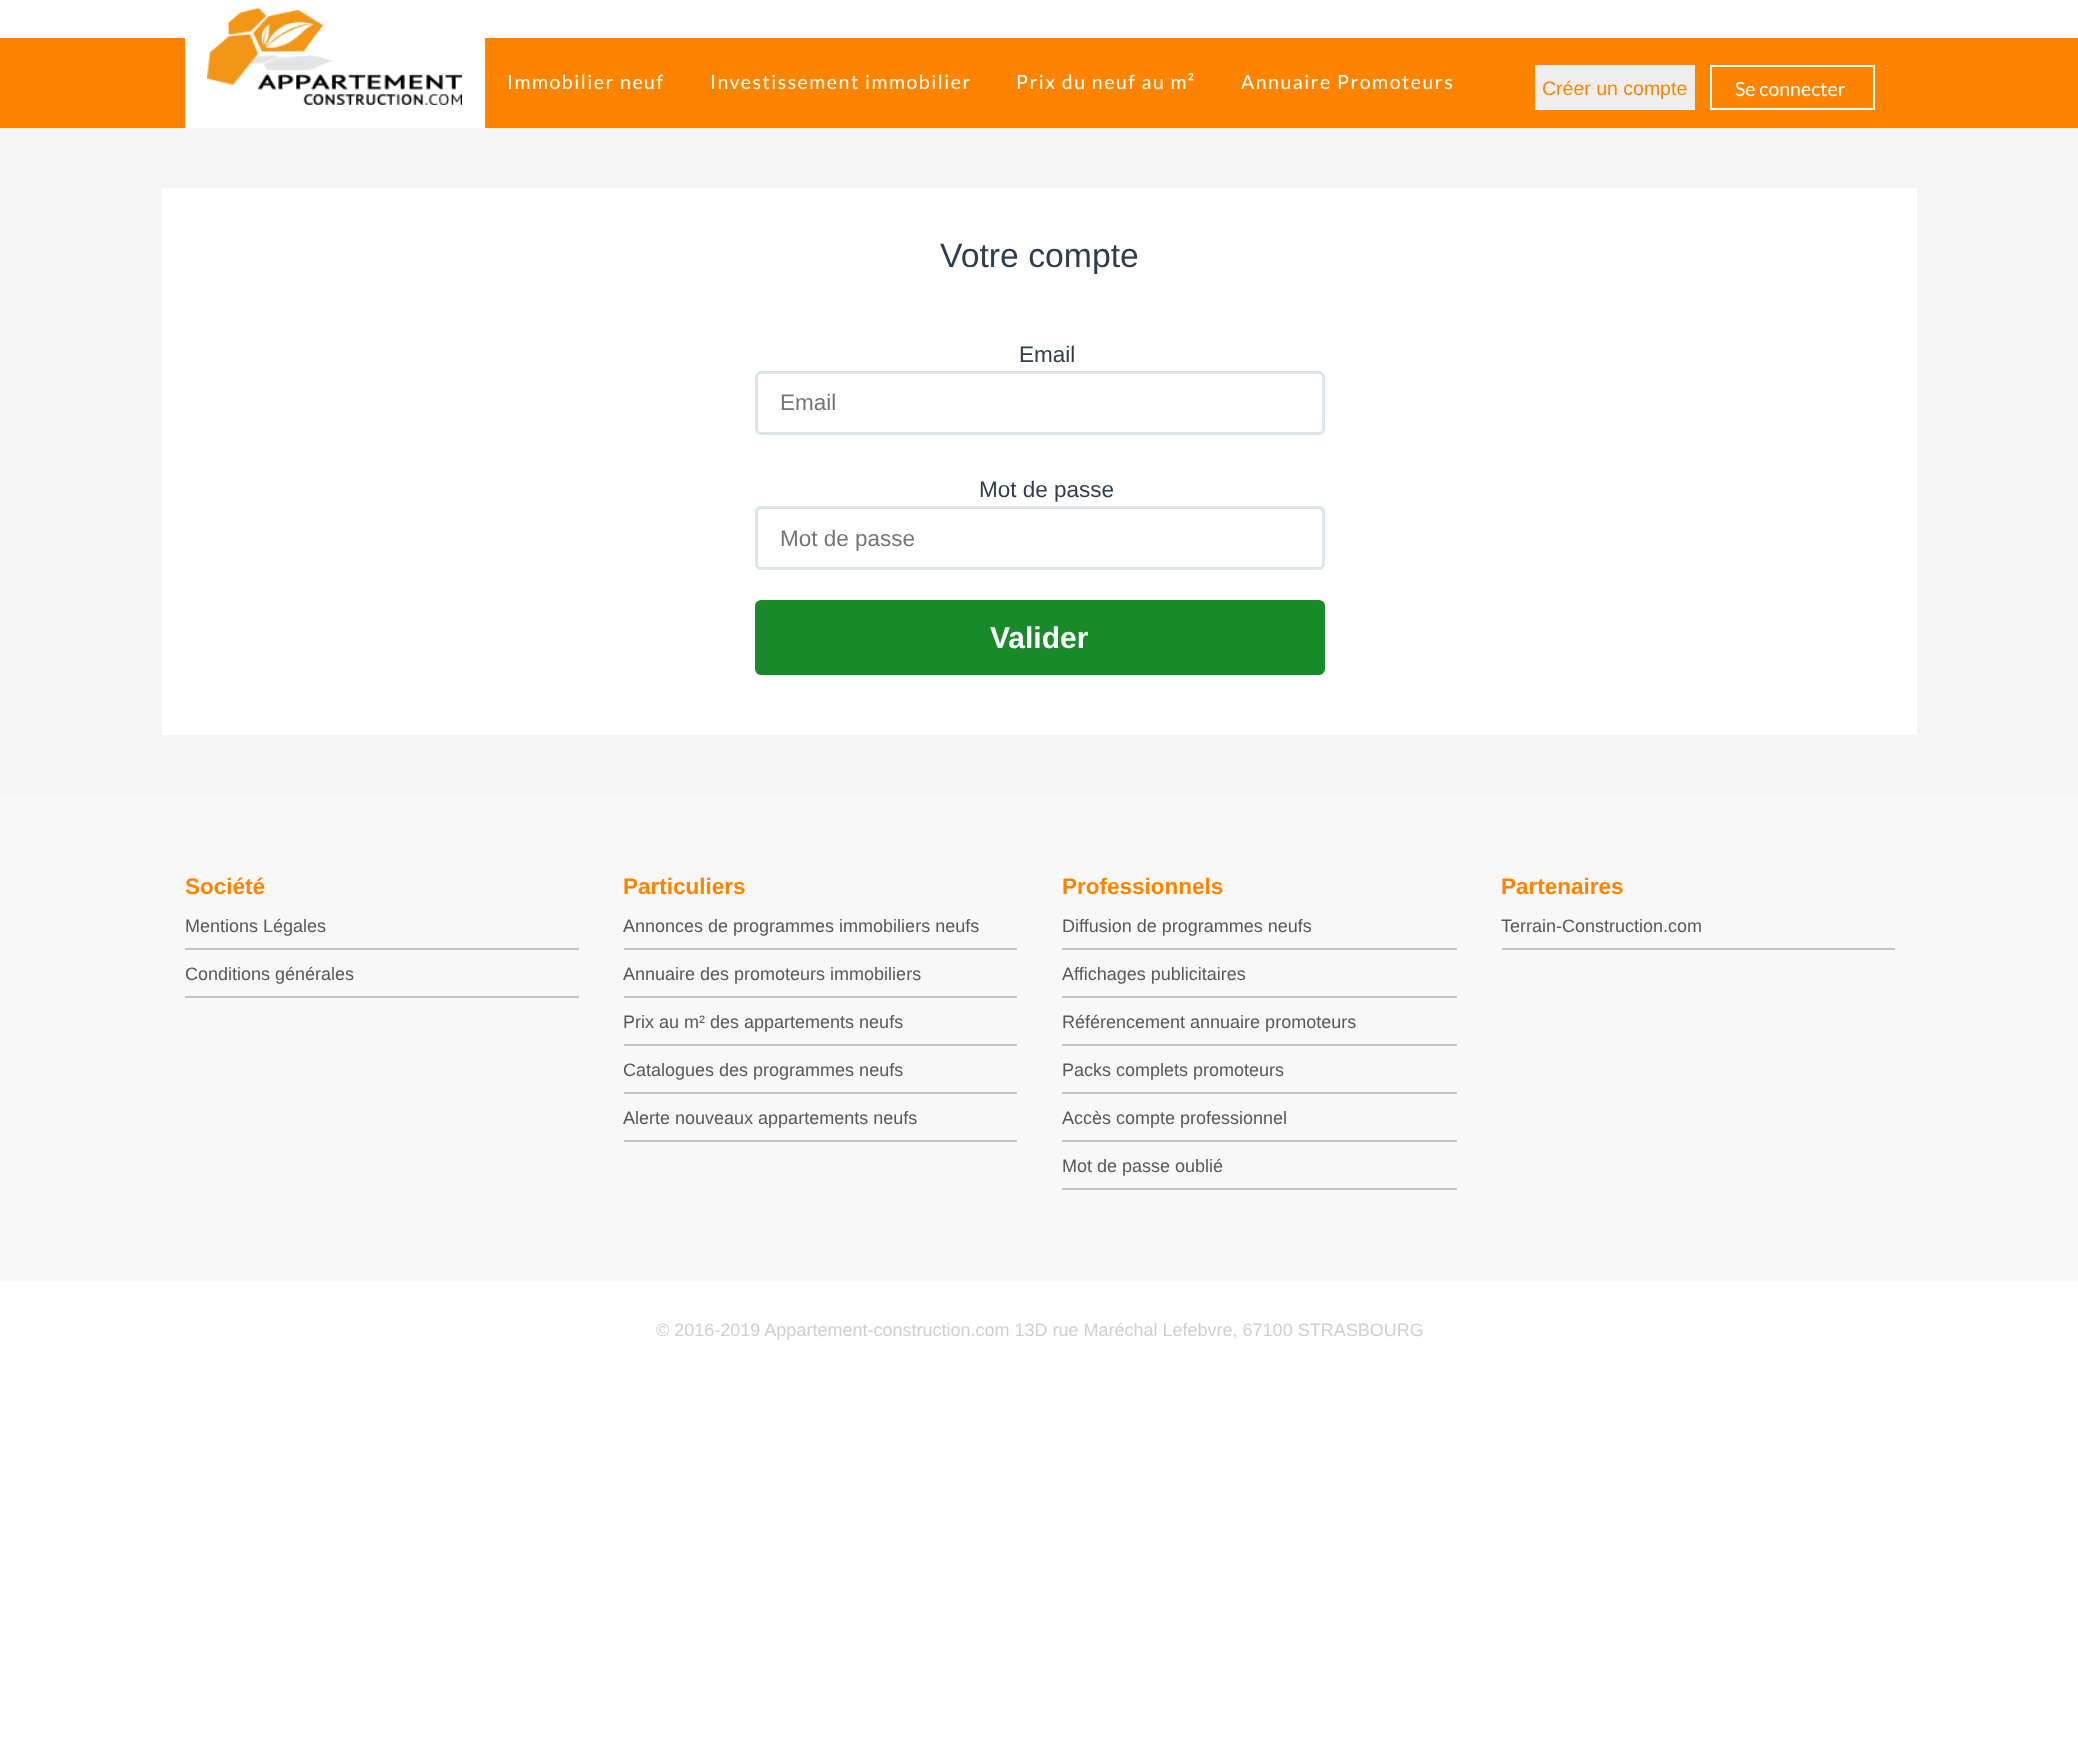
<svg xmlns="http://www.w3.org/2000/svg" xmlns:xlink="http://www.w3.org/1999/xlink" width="2078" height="1764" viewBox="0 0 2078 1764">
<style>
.cls-1{font:19.5px Lato;letter-spacing:1.5px;fill:#ffffff}
.cls-2{font:19.5px Liberation Sans;fill:#fe8400}
.cls-3{font:19.5px Lato;fill:#ffffff}
.cls-4{font:33.75px Liberation Sans;fill:#2c3e50}
.cls-5{font:22.5px Liberation Sans;fill:#2c3e50}
.cls-6{font:22.5px Liberation Sans;fill:#757575}
.cls-7{font:bold 30px Liberation Sans;fill:#ffffff}
.cls-8{font:bold 22.5px Liberation Sans;fill:#fe8400}
.cls-9{font:18px Liberation Sans;fill:#585858}
.cls-10{font:18px Liberation Sans;fill:#cfcfcf}
</style>
<rect width="100%" height="100%" fill="#ffffff"/>
<rect fill="#fe8400" x="0" y="38" width="2078" height="90"/>
<rect fill="#ffffff" x="185" y="38" width="300" height="90"/>
<image xlink:href="image0.png" x="207" y="7" width="255" height="98"/>
<rect fill="#eeeeee" x="1535" y="65" width="160" height="45"/>
<rect fill="none" stroke="#ffffff" stroke-width="2" x="1711" y="66" width="163" height="43"/>
<rect fill="#f5f5f5" x="0" y="128" width="2078" height="667"/>
<rect fill="#ffffff" x="162" y="188" width="1755" height="547"/>
<rect fill="none" stroke="#dce4ec" stroke-width="3" x="756.5" y="372.5" width="567" height="61" rx="4.5"/>
<rect fill="none" stroke="#dce4ec" stroke-width="3" x="756.5" y="507.5" width="567" height="61" rx="4.5"/>
<rect fill="#198a2a" x="755" y="600" width="570" height="75" rx="6"/>
<rect fill="#f8f8f8" x="0" y="795" width="2078" height="486"/>
<rect fill="#c3c3c3" x="185" y="948" width="394" height="2"/>
<rect fill="#c3c3c3" x="185" y="996" width="394" height="2"/>
<rect fill="#c3c3c3" x="624" y="948" width="393" height="2"/>
<rect fill="#c3c3c3" x="624" y="996" width="393" height="2"/>
<rect fill="#c3c3c3" x="624" y="1044" width="393" height="2"/>
<rect fill="#c3c3c3" x="624" y="1092" width="393" height="2"/>
<rect fill="#c3c3c3" x="624" y="1140" width="393" height="2"/>
<rect fill="#c3c3c3" x="1062" y="948" width="395" height="2"/>
<rect fill="#c3c3c3" x="1062" y="996" width="395" height="2"/>
<rect fill="#c3c3c3" x="1062" y="1044" width="395" height="2"/>
<rect fill="#c3c3c3" x="1062" y="1092" width="395" height="2"/>
<rect fill="#c3c3c3" x="1062" y="1140" width="395" height="2"/>
<rect fill="#c3c3c3" x="1062" y="1188" width="395" height="2"/>
<rect fill="#c3c3c3" x="1502" y="948" width="393" height="2"/>
<text class="cls-1" x="507" y="89">Immobilier neuf</text>
<text class="cls-1" x="710" y="89">Investissement immobilier</text>
<text class="cls-1" x="1016" y="89">Prix du neuf au m²</text>
<text class="cls-1" x="1241" y="89">Annuaire Promoteurs</text>
<text class="cls-2" x="1542" y="95">Créer un compte</text>
<text class="cls-3" x="1735" y="96">Se connecter</text>
<text class="cls-4" x="940" y="267">Votre compte</text>
<text class="cls-5" x="1019" y="362">Email</text>
<text class="cls-6" x="780" y="410">Email</text>
<text class="cls-5" x="979" y="497">Mot de passe</text>
<text class="cls-6" x="780" y="546">Mot de passe</text>
<text class="cls-7" x="990" y="648">Valider</text>
<text class="cls-8" x="185" y="894">Société</text>
<text class="cls-9" x="185" y="932">Mentions Légales</text>
<text class="cls-9" x="185" y="980">Conditions générales</text>
<text class="cls-8" x="623" y="894">Particuliers</text>
<text class="cls-9" x="623" y="932">Annonces de programmes immobiliers neufs</text>
<text class="cls-9" x="623" y="980">Annuaire des promoteurs immobiliers</text>
<text class="cls-9" x="623" y="1028">Prix au m² des appartements neufs</text>
<text class="cls-9" x="623" y="1076">Catalogues des programmes neufs</text>
<text class="cls-9" x="623" y="1124">Alerte nouveaux appartements neufs</text>
<text class="cls-8" x="1062" y="894">Professionnels</text>
<text class="cls-9" x="1062" y="932">Diffusion de programmes neufs</text>
<text class="cls-9" x="1062" y="980">Affichages publicitaires</text>
<text class="cls-9" x="1062" y="1028">Référencement annuaire promoteurs</text>
<text class="cls-9" x="1062" y="1076">Packs complets promoteurs</text>
<text class="cls-9" x="1062" y="1124">Accès compte professionnel</text>
<text class="cls-9" x="1062" y="1172">Mot de passe oublié</text>
<text class="cls-8" x="1501" y="894">Partenaires</text>
<text class="cls-9" x="1501" y="932">Terrain-Construction.com</text>
<text class="cls-10" x="656" y="1336">© 2016-2019 Appartement-construction.com 13D rue Maréchal Lefebvre, 67100 STRASBOURG</text>
</svg>
